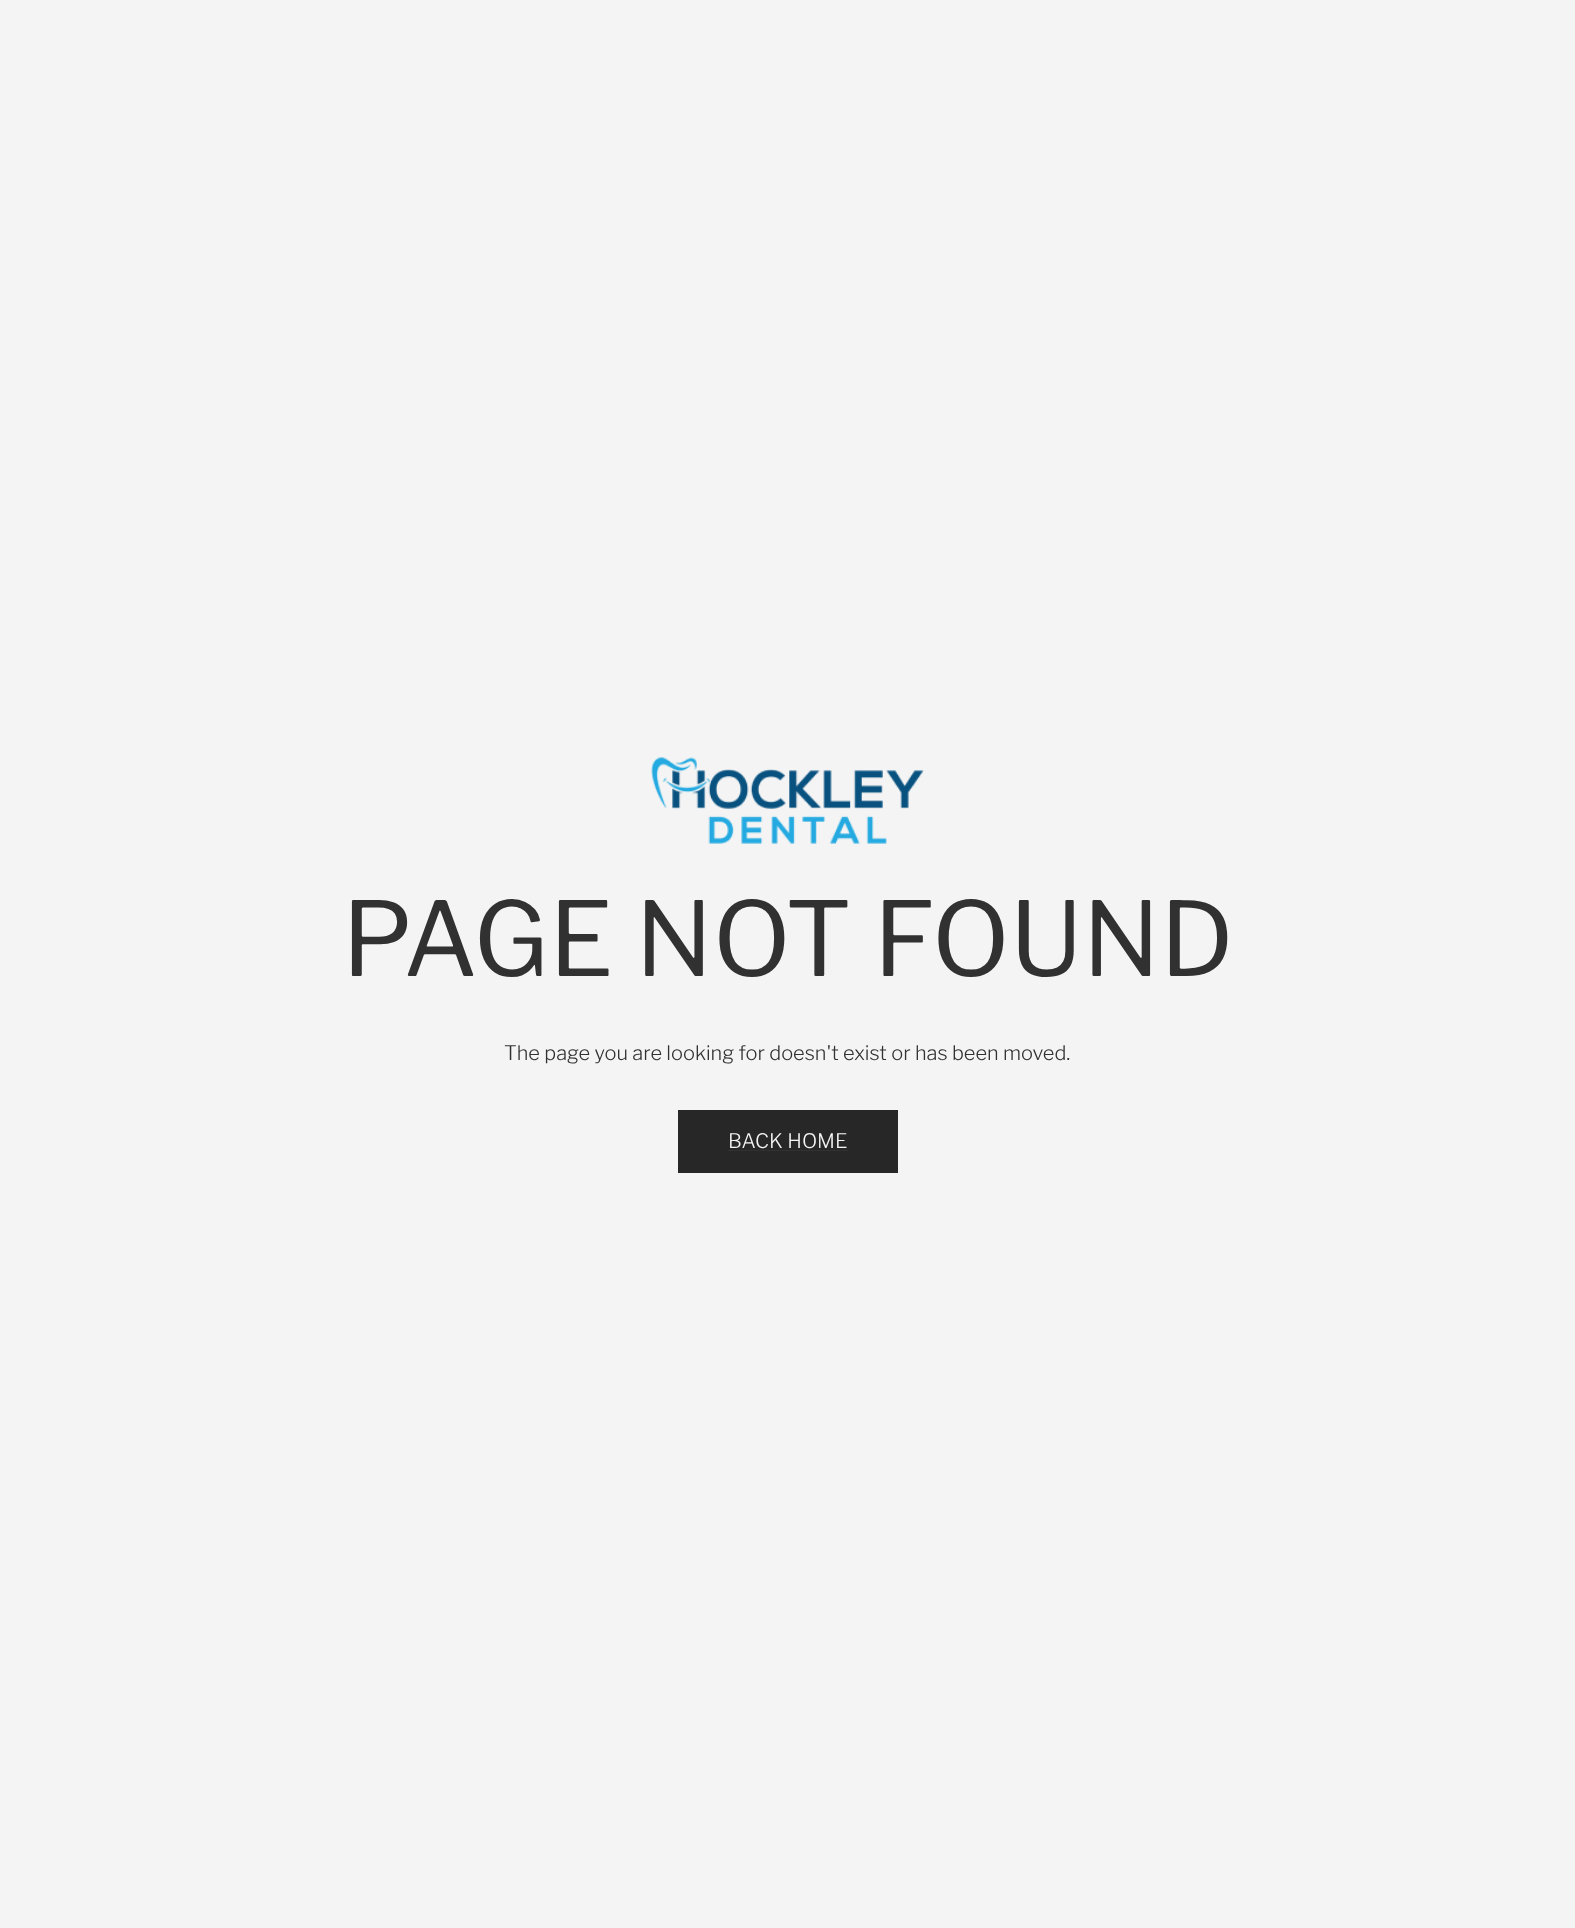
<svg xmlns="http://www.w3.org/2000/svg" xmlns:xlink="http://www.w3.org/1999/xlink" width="1575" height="1928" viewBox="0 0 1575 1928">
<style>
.cls-1{font:102.4px Libre Franklin;fill:#313131}
.cls-2{font:300 20px Libre Franklin;fill:#313131}
.cls-3{font:300 20px Libre Franklin;fill:#f4f4f4}
</style>
<rect width="100%" height="100%" fill="#f4f4f4"/>
<image xlink:href="image0.png" x="651" y="757" width="273" height="87"/>
<rect fill="#272727" x="678" y="1110" width="220" height="63"/>
<rect fill="#313131" x="728" y="1150" width="120" height="1"/>
<text class="cls-1" x="342" y="976">PAGE NOT FOUND</text>
<text class="cls-2" x="504" y="1060">The page you are looking for doesn't exist or has been moved.</text>
<text class="cls-3" x="728" y="1148">BACK HOME</text>
</svg>
